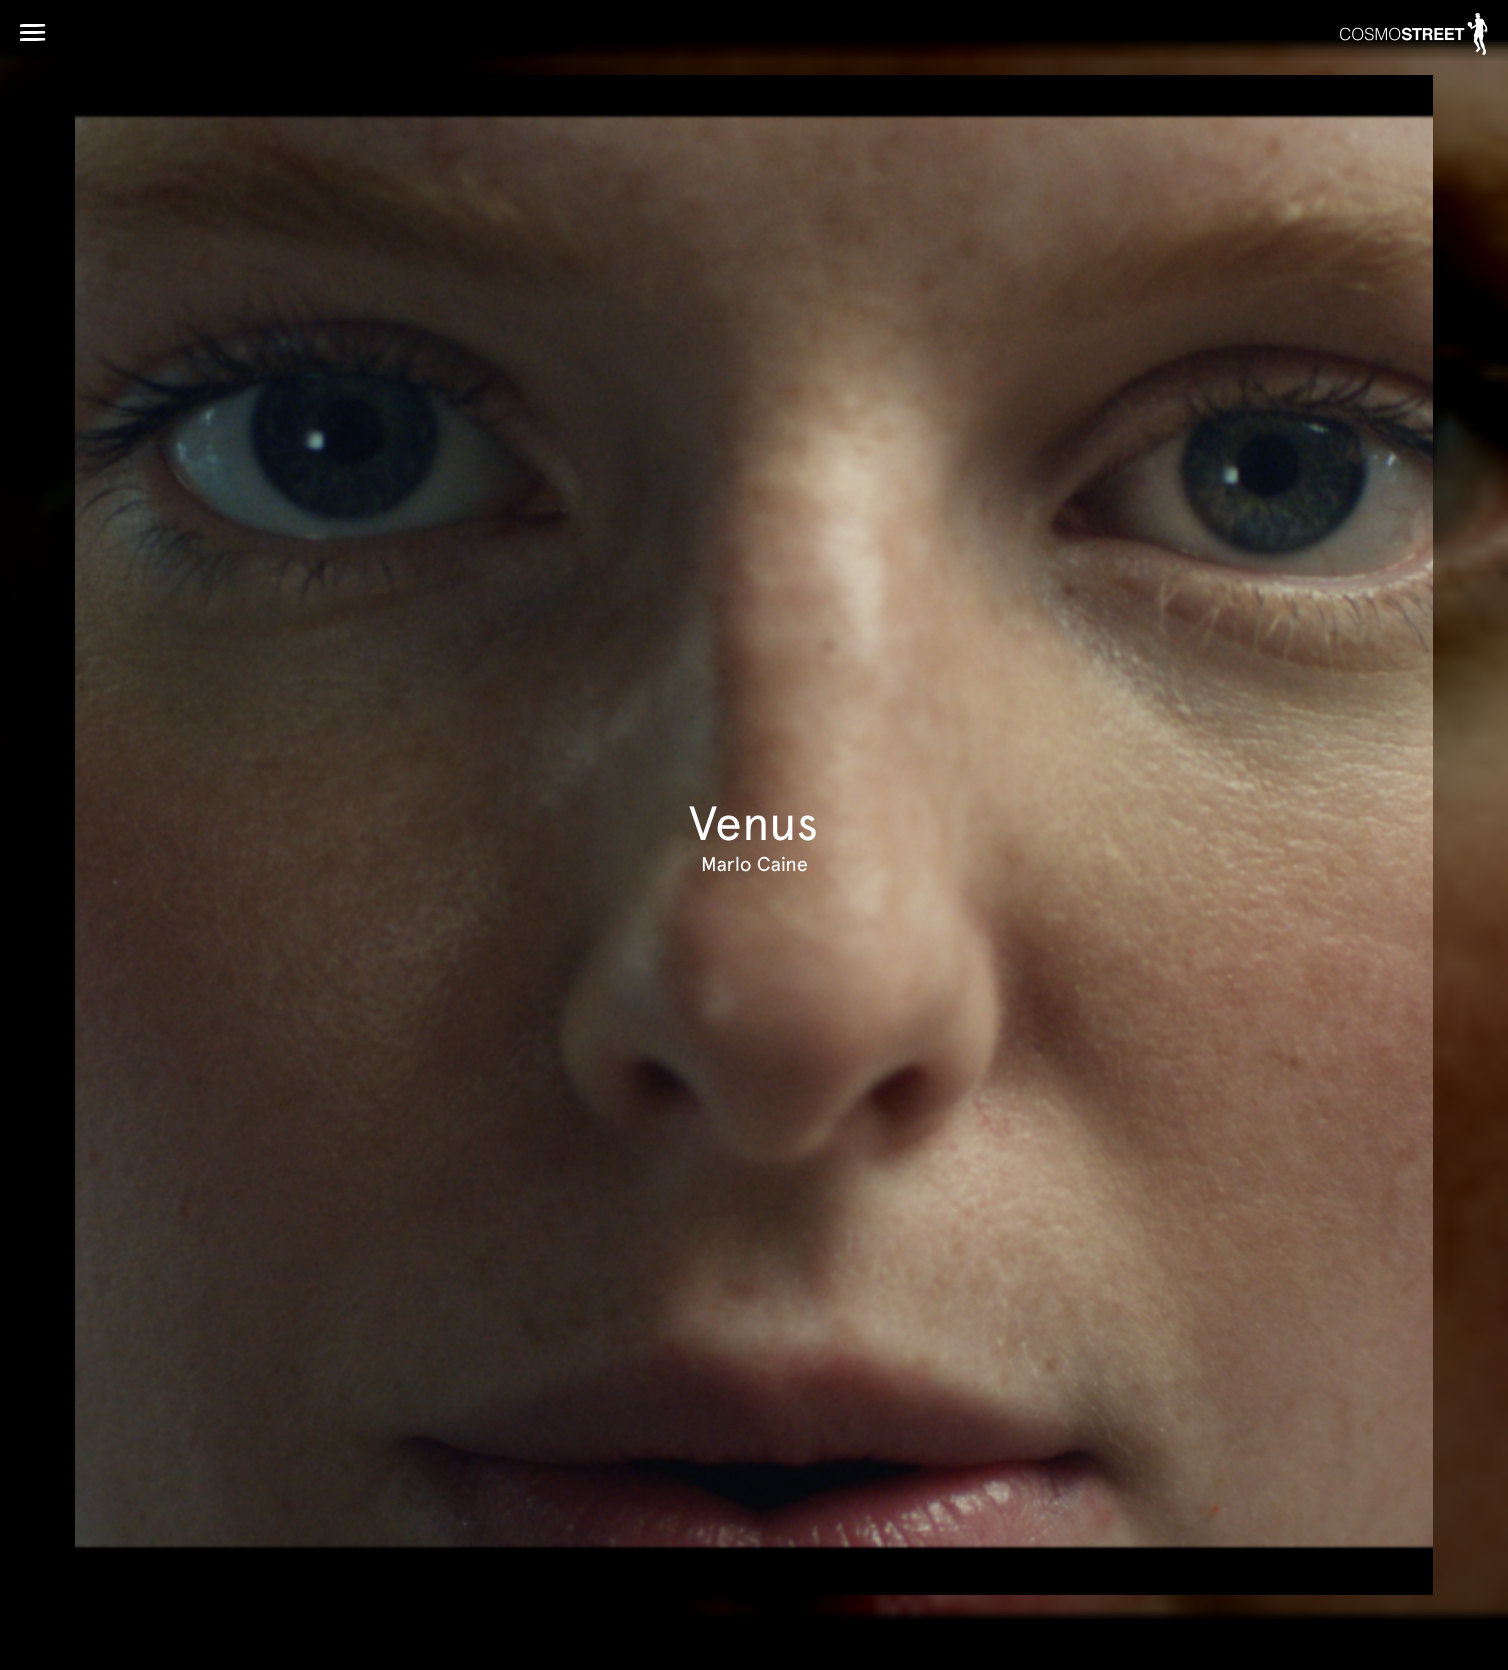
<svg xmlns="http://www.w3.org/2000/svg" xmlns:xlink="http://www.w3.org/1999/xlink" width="1508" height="1670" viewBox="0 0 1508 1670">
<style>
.cls-1{font:48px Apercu;fill:#ffffff}
.cls-2{font:20px Apercu;fill:#ffffff}
</style>
<rect width="100%" height="100%" fill="#000000"/>
<image xlink:href="image1.png" x="0" y="40" width="1508" height="1579"/>
<path fill="#ffffff" d="M24 24H44.5C45.5 24.5 45.5 26.5 44.5 26.5L35.5 27H20.5C20 26.5 20 26.5 20 25.5V24.5ZM24 31H44.5C45.5 31.5 45.5 33.5 44.5 33.5L35.5 34H20.5C20 33.5 20 33.5 20 32.5V31.5ZM24 38H44.5C45.5 38.5 45.5 40.5 44.5 40.5L35.5 41H20.5C20 40.5 20 40.5 20 39.5V38.5Z"/>
<image xlink:href="image0.png" x="1340" y="13" width="148" height="42"/>
<rect fill="#000000" x="75" y="75" width="1358" height="1520"/>
<image xlink:href="image2.png" x="75" y="114" width="1358" height="1435"/>
<text class="cls-1" x="689" y="840">Venus</text>
<text class="cls-2" x="701" y="871">Marlo Caine</text>
</svg>
